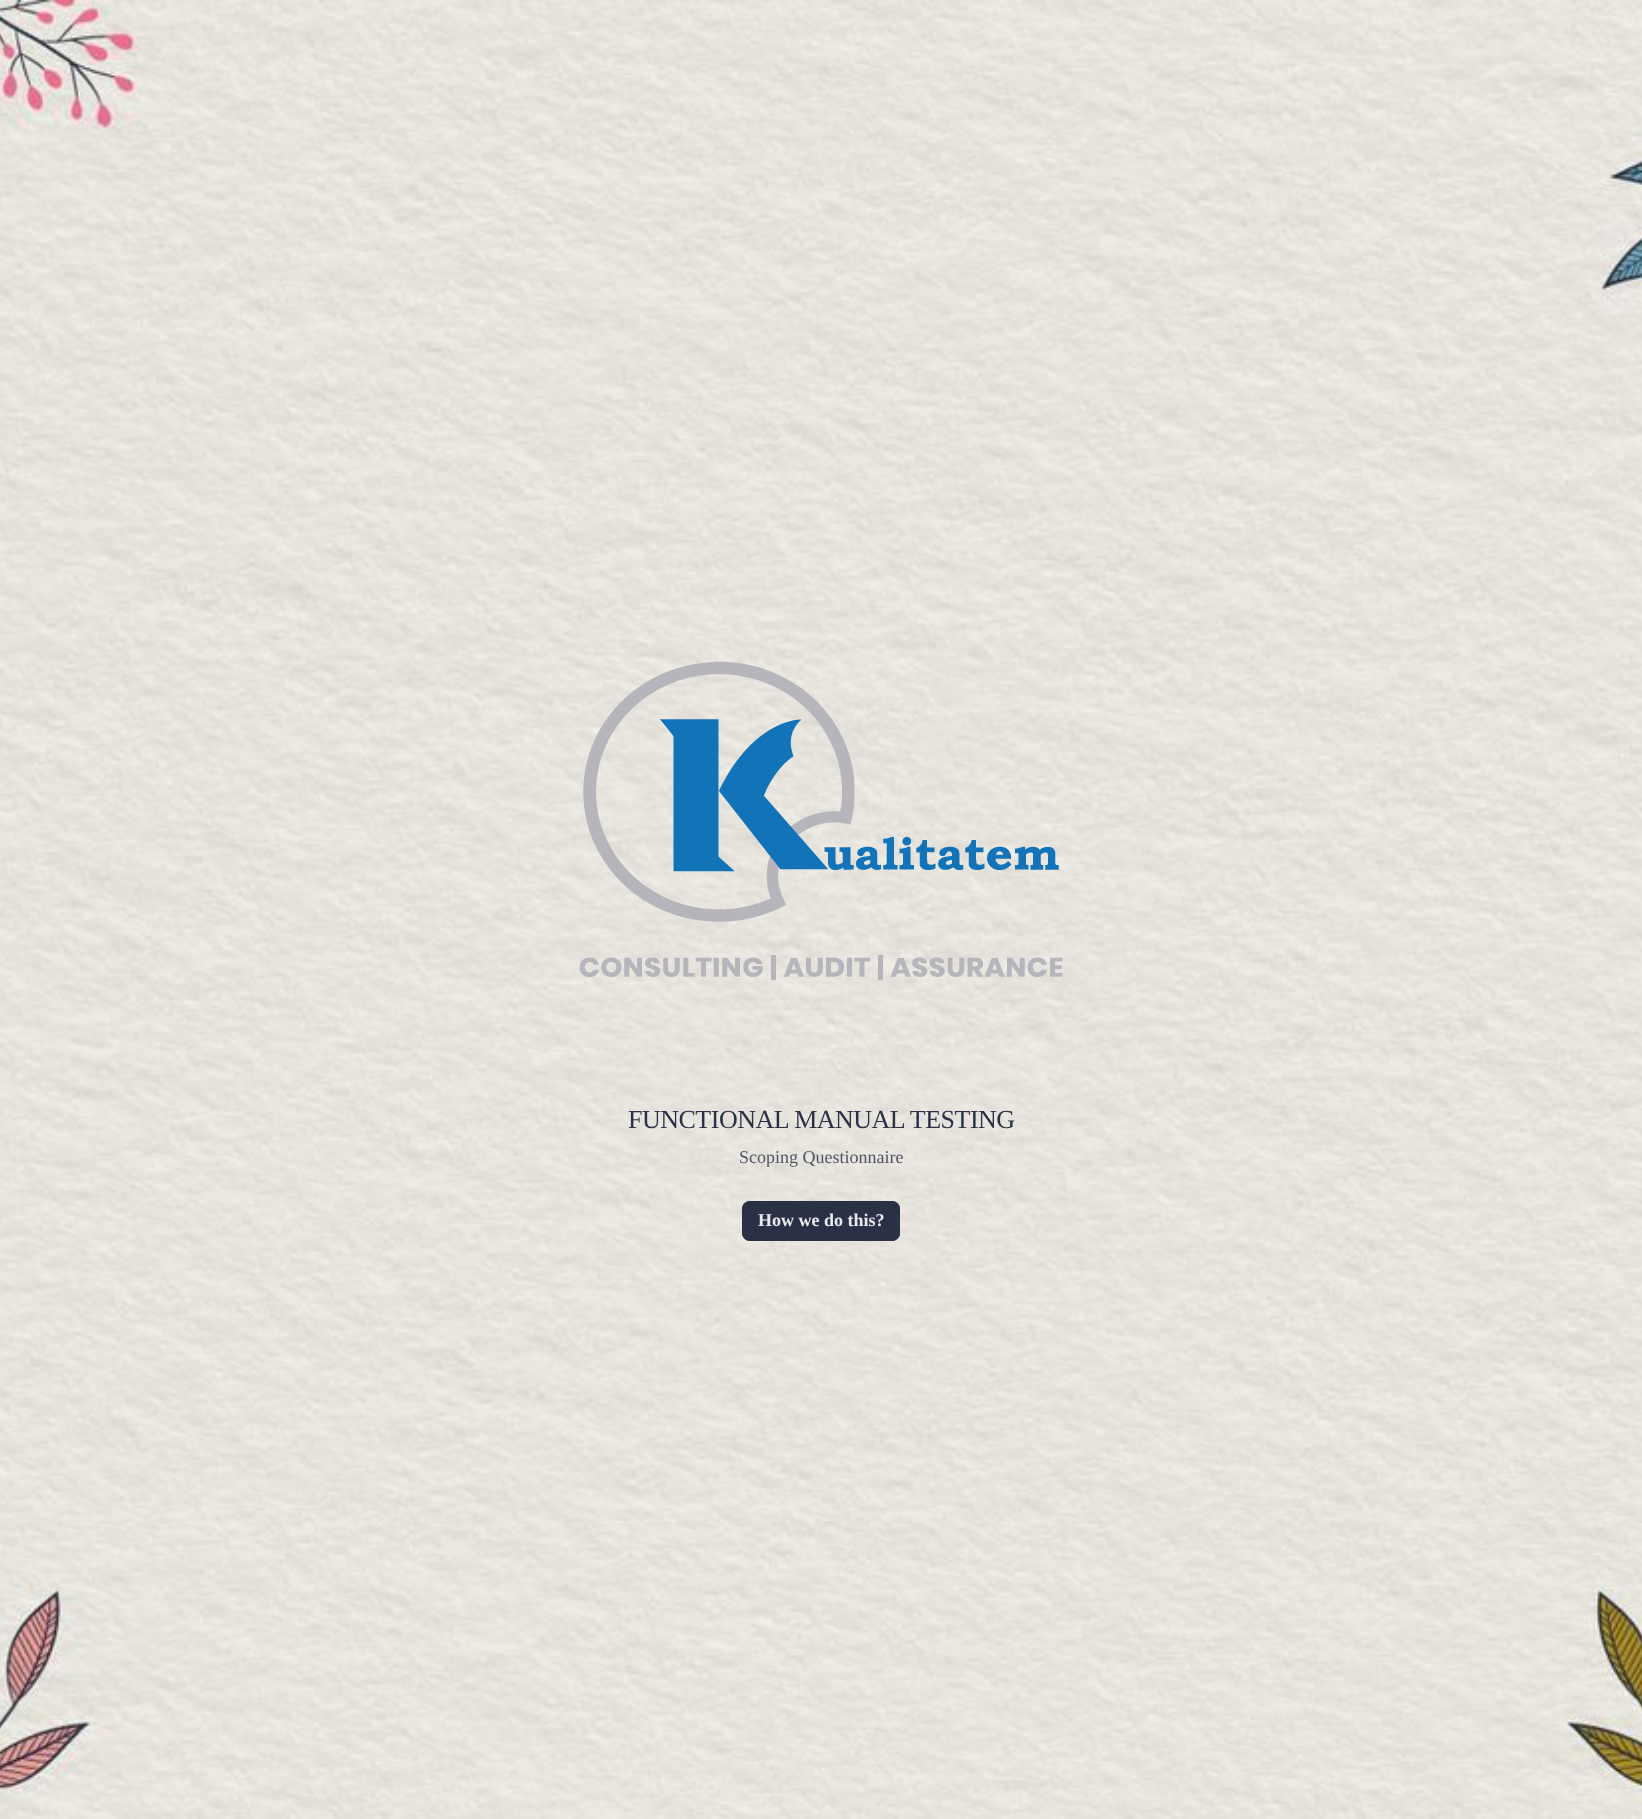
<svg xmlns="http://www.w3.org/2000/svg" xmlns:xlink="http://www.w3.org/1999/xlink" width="1642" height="1819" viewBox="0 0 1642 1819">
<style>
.cls-1{font:26px Liberation Serif;letter-spacing:-0.5px;fill:#2a3146}
.cls-2{font:18px Liberation Serif;fill:#4f5464}
.cls-3{font:bold 18px Liberation Serif;fill:#eaeaed}
</style>
<rect width="100%" height="100%" fill="#ffffff"/>
<image xlink:href="image0.png" x="0" y="0" width="1642" height="1819"/>
<image xlink:href="image1.png" x="579" y="661" width="484" height="320"/>
<rect fill="none" stroke="#2a3146" x="742.5" y="1201.5" width="157" height="39" rx="7.5"/>
<rect fill="#2a3146" filter="blur(0.5px)" x="742" y="1201" width="158" height="40" rx="8"/>
<text class="cls-1" x="628" y="1128">FUNCTIONAL MANUAL TESTING</text>
<text class="cls-2" x="739" y="1163">Scoping Questionnaire</text>
<text class="cls-3" x="758" y="1226">How we do this?</text>
</svg>
